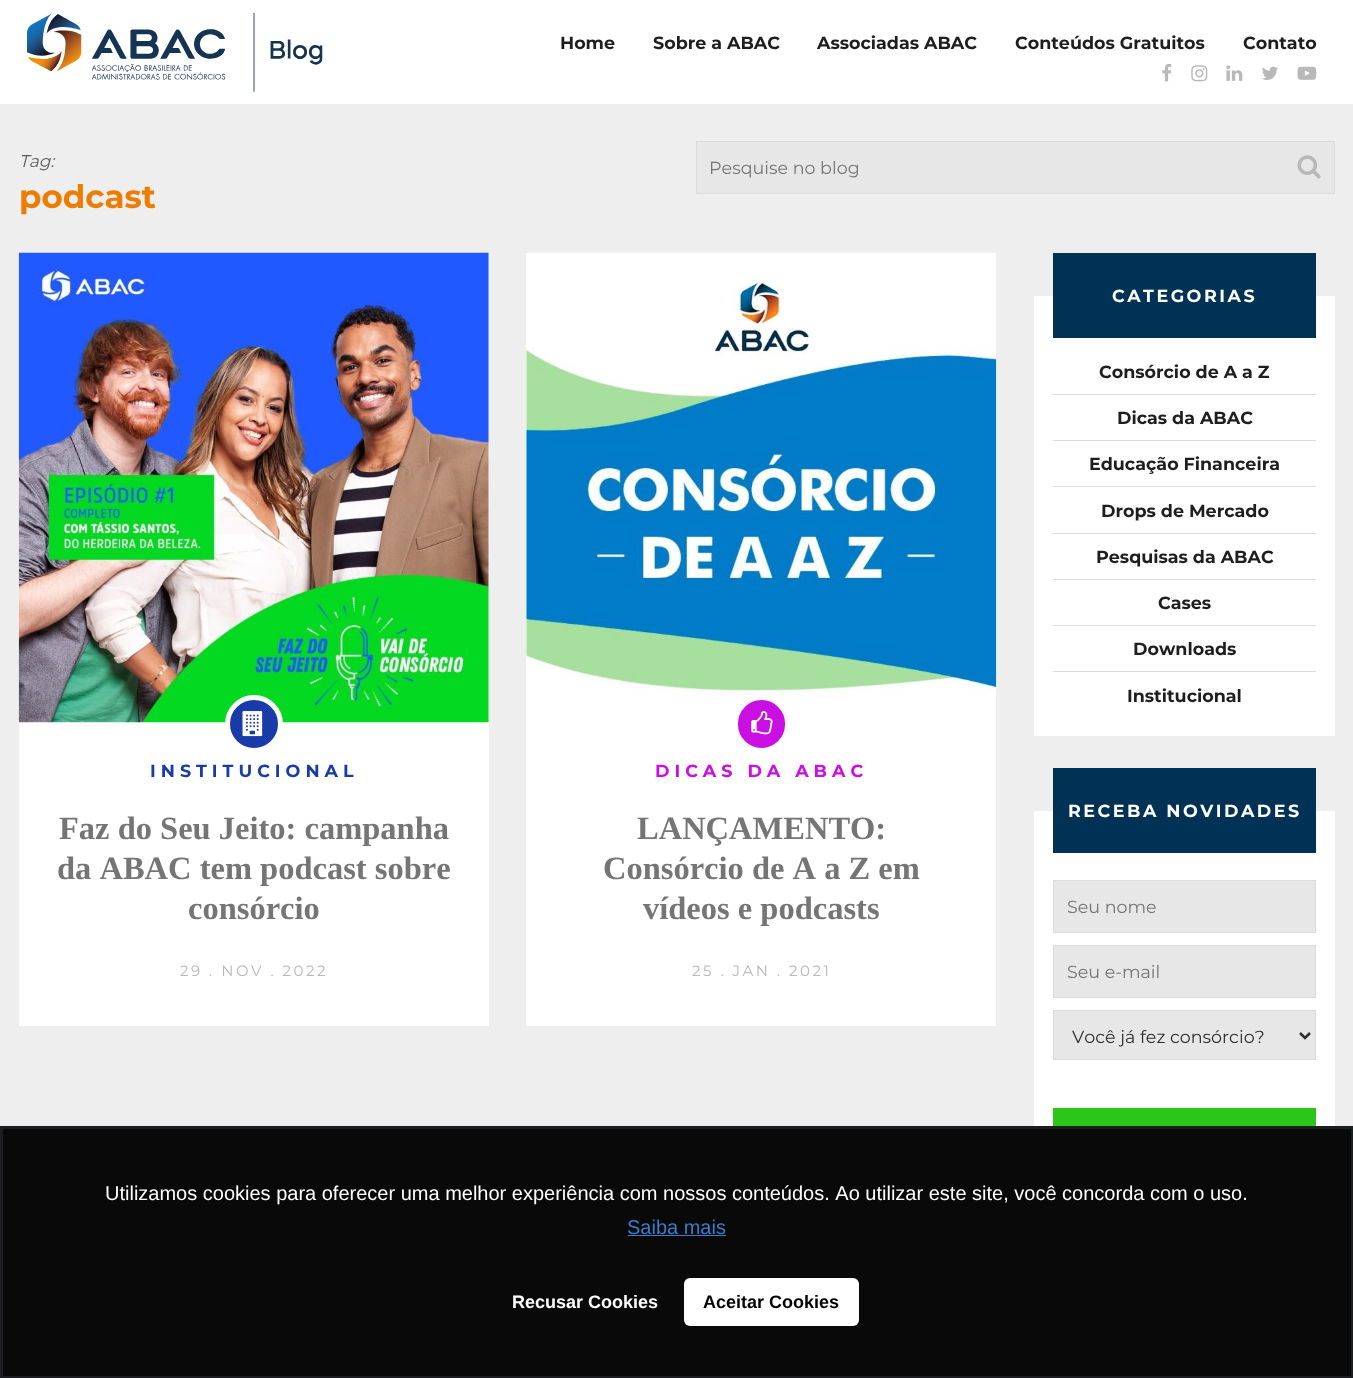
<svg xmlns="http://www.w3.org/2000/svg" xmlns:xlink="http://www.w3.org/1999/xlink" width="1353" height="1378" viewBox="0 0 1353 1378">
<style>*{font-kerning:none!important;font-variant-ligatures:none!important}</style>
<style>
.cls-1{font:bold 17.5px Montserrat;fill:#1e1e1e}
.cls-2{font:italic 17px Montserrat;fill:#5f5f5f}
.cls-3{font:bold 32.5px Montserrat;fill:#ed7c01}
.cls-4{font:17.5px Montserrat;fill:#757575}
.cls-5{font:bold 17.5px Montserrat;letter-spacing:5px;fill:#193baa}
.cls-6{font:bold 32.5px Liberation Serif;fill:#757575}
.cls-7{font:15px Montserrat;letter-spacing:2.5px;fill:#b8b8b8}
.cls-8{font:bold 17.5px Montserrat;letter-spacing:5px;fill:#ca0fe2}
.cls-9{font:bold 17.5px Montserrat;letter-spacing:2.5px;fill:#ffffff}
.cls-10{font:17.5px Montserrat;fill:#2e2e2e}
.cls-11{font:20px Liberation Sans;fill:#ffffff}
.cls-12{font:20px Liberation Sans;fill:#357fce}
.cls-13{font:bold 18px Liberation Sans;fill:#ffffff}
.cls-14{font:bold 18px Liberation Sans;fill:#000000}
</style>
<rect width="100%" height="100%" fill="#eeeeee"/>
<rect fill="#ffffff" x="0" y="0" width="1353" height="104"/>
<image xlink:href="image0.png" x="27" y="13" width="296" height="79"/>
<image xlink:href="image1.png" x="1162" y="64" width="10" height="18"/>
<image xlink:href="image2.png" x="1191" y="65" width="17" height="17"/>
<image xlink:href="image3.png" x="1226" y="65" width="17" height="16"/>
<image xlink:href="image4.png" x="1262" y="66" width="16" height="14"/>
<image xlink:href="image5.png" x="1297" y="66" width="20" height="14"/>
<rect fill="#e7e7e8" stroke="#dcdcdc" x="696.5" y="141.5" width="638" height="52"/>
<image xlink:href="image6.png" x="1297" y="155" width="24" height="24"/>
<rect fill="#ffffff" x="19" y="253" width="470" height="773"/>
<image xlink:href="image7.png" x="18" y="252" width="471" height="471"/>
<circle fill="#193baa" stroke="#ffffff" stroke-width="5" cx="254" cy="724" r="26.5"/>
<image xlink:href="image8.png" x="242" y="711" width="21" height="26"/>
<rect fill="#ffffff" x="526" y="253" width="470" height="773"/>
<image xlink:href="image9.png" x="526" y="252" width="471" height="441"/>
<rect fill="#ca0fe2" stroke="#ffffff" stroke-width="5" x="735.5" y="697.5" width="52" height="53" rx="26"/>
<image xlink:href="image10.png" x="751" y="711" width="22" height="24"/>
<rect fill="#ffffff" x="1034" y="296" width="301" height="440"/>
<rect fill="#003255" x="1053" y="253" width="263" height="85"/>
<rect fill="#dcdcdc" x="1053" y="394" width="263" height="1"/>
<rect fill="#dcdcdc" x="1053" y="440" width="263" height="1"/>
<rect fill="#dcdcdc" x="1053" y="486" width="263" height="1"/>
<rect fill="#dcdcdc" x="1053" y="533" width="263" height="1"/>
<rect fill="#dcdcdc" x="1053" y="579" width="263" height="1"/>
<rect fill="#dcdcdc" x="1053" y="625" width="263" height="1"/>
<rect fill="#dcdcdc" x="1053" y="671" width="263" height="1"/>
<rect fill="#ffffff" x="1034" y="811" width="301" height="315"/>
<rect fill="#003255" x="1053" y="768" width="263" height="85"/>
<rect fill="#e7e7e8" stroke="#dcdcdc" x="1053.5" y="880.5" width="262" height="52"/>
<rect fill="#e7e7e8" stroke="#dcdcdc" x="1053.5" y="945.5" width="262" height="52"/>
<rect fill="#e7e7e8" stroke="#dcdcdc" x="1053.5" y="1010.5" width="262" height="49"/>
<path fill="none" stroke="#2e2e2e" stroke-width="2.5" d="M1300 1033L1305 1038L1310 1033"/>
<rect fill="#2bc617" x="1053" y="1108" width="263" height="18"/>
<rect fill="#090909" stroke="#1b1d20" stroke-width="3" x="1.5" y="1127.5" width="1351" height="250"/>
<rect fill="#357fce" x="628" y="1235" width="98" height="1"/>
<rect fill="#ffffff" x="684" y="1278" width="175" height="48" rx="6"/>
<text class="cls-1" x="560" y="49">Home</text>
<text class="cls-1" x="653" y="49">Sobre a ABAC</text>
<text class="cls-1" x="817" y="49">Associadas ABAC</text>
<text class="cls-1" x="1015" y="49">Conteúdos Gratuitos</text>
<text class="cls-1" x="1243" y="49">Contato</text>
<text class="cls-2" x="19" y="167">Tag:</text>
<text class="cls-3" x="19" y="208">podcast</text>
<text class="cls-4" x="709" y="174">Pesquise no blog</text>
<text class="cls-5" x="150" y="777">INSTITUCIONAL</text>
<text class="cls-6" x="59" y="839">Faz do Seu Jeito: campanha</text>
<text class="cls-6" x="57" y="879">da ABAC tem podcast sobre</text>
<text class="cls-6" x="188" y="919">consórcio</text>
<text class="cls-7" x="180" y="976">29 . NOV . 2022</text>
<text class="cls-8" x="655" y="777">DICAS DA ABAC</text>
<text class="cls-6" x="637" y="839">LANÇAMENTO:</text>
<text class="cls-6" x="603" y="879">Consórcio de A a Z em</text>
<text class="cls-6" x="643" y="919">vídeos e podcasts</text>
<text class="cls-7" x="692" y="976">25 . JAN . 2021</text>
<text class="cls-9" x="1112" y="302">CATEGORIAS</text>
<text class="cls-1" x="1099" y="378">Consórcio de A a Z</text>
<text class="cls-1" x="1117" y="424">Dicas da ABAC</text>
<text class="cls-1" x="1089" y="470">Educação Financeira</text>
<text class="cls-1" x="1101" y="517">Drops de Mercado</text>
<text class="cls-1" x="1096" y="563">Pesquisas da ABAC</text>
<text class="cls-1" x="1158" y="609">Cases</text>
<text class="cls-1" x="1133" y="655">Downloads</text>
<text class="cls-1" x="1127" y="702">Institucional</text>
<text class="cls-9" x="1068" y="817">RECEBA NOVIDADES</text>
<text class="cls-4" x="1067" y="913">Seu nome</text>
<text class="cls-4" x="1067" y="978">Seu e-mail</text>
<text class="cls-10" x="1072" y="1043">Você já fez consórcio?</text>
<text class="cls-11" x="105" y="1200">Utilizamos cookies para oferecer uma melhor experiência com nossos conteúdos. Ao utilizar este site, você concorda com o uso.</text>
<text class="cls-12" x="627" y="1234">Saiba mais</text>
<text class="cls-13" x="512" y="1308">Recusar Cookies</text>
<text class="cls-14" x="703" y="1308">Aceitar Cookies</text>
</svg>
